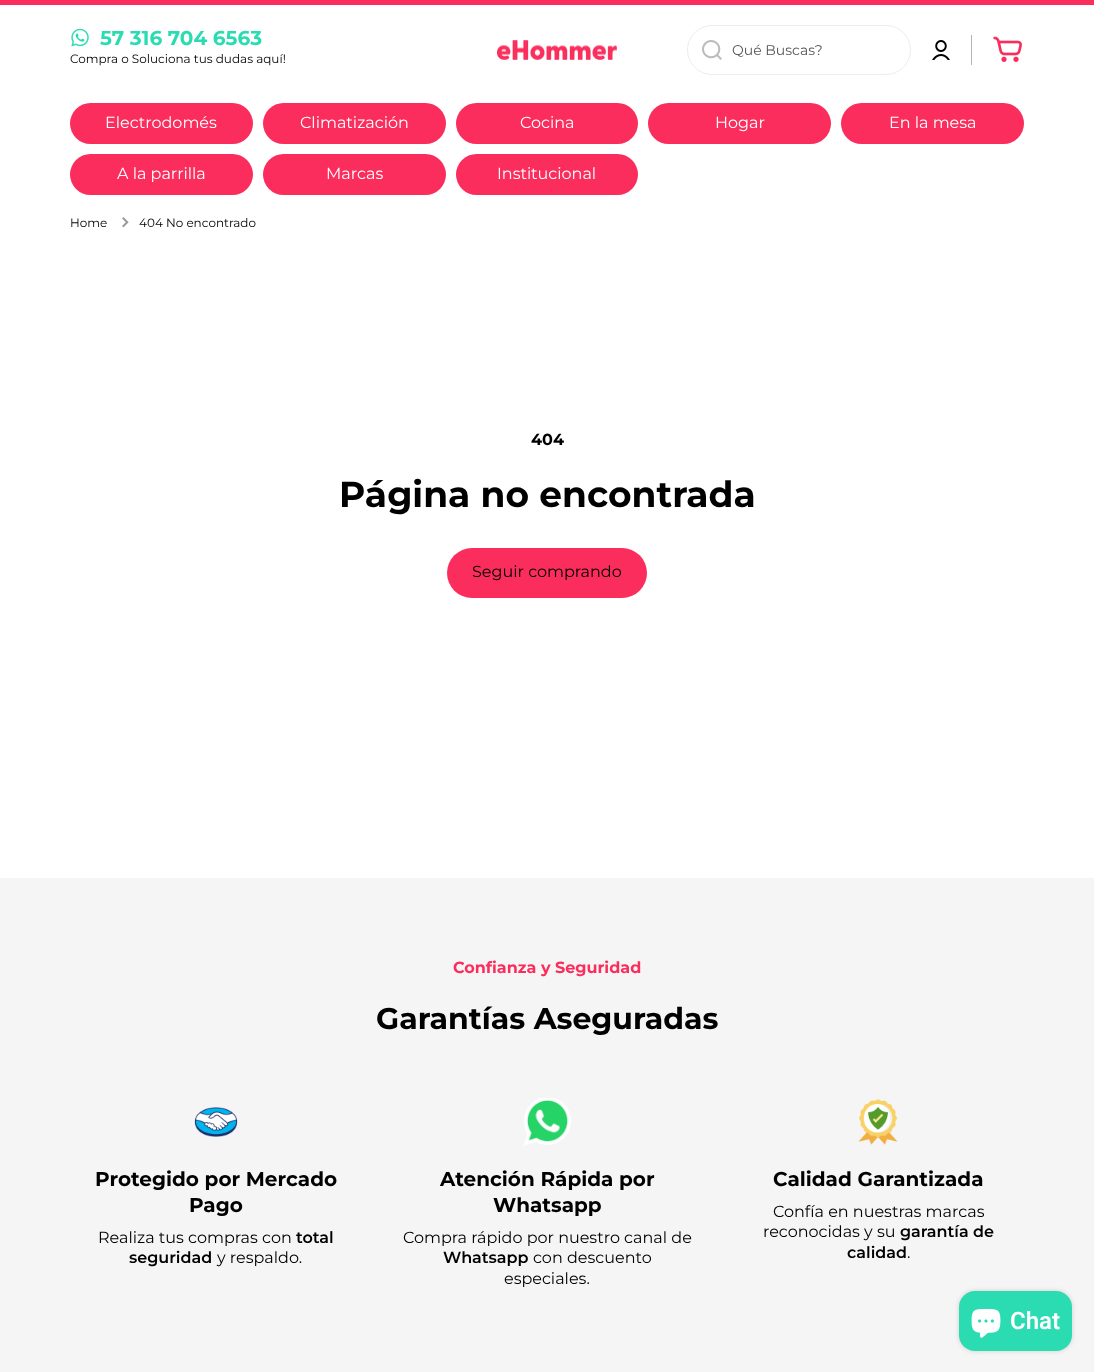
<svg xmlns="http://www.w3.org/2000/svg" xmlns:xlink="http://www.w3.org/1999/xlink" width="1094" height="1372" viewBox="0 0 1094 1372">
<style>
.cls-1{font:bold 20px Montserrat;fill:#2bdcb2}
.cls-2{font:12px Montserrat;fill:#000000}
.cls-3{font:14px Montserrat;fill:#555555}
.cls-4{font:16px Montserrat;fill:#ffffff}
.cls-5{font:bold 16px Montserrat;fill:#000000}
.cls-6{font:bold 36px Montserrat;fill:#000000}
.cls-7{font:16px Montserrat;fill:#000000}
.cls-8{font:bold 16px Montserrat;fill:#fb2d5c}
.cls-9{font:bold 30px Montserrat;fill:#000000}
.cls-10{font:bold 20px Montserrat;fill:#000000}
.cls-11{font:600 16px Montserrat;fill:#000000}
.cls-12{font:600 24px Roboto;fill:#ffffff}
</style>
<rect width="100%" height="100%" fill="#ffffff"/>
<rect fill="#fb2d5c" x="0" y="0" width="1094" height="5"/>
<image xlink:href="image0.png" x="71" y="28" width="18" height="19"/>
<image xlink:href="image1.png" x="497" y="40" width="120" height="20"/>
<rect fill="none" stroke="#ededed" x="687.5" y="25.5" width="223" height="49" rx="24.5"/>
<image xlink:href="image2.png" x="702" y="40" width="20" height="20"/>
<image xlink:href="image3.png" x="932" y="40" width="18" height="20"/>
<rect fill="#b3b3b3" x="971" y="35" width="1" height="30"/>
<image xlink:href="image4.png" x="993" y="36" width="29" height="26"/>
<rect fill="#fb2d5c" x="70" y="103" width="183" height="41" rx="20.5"/>
<rect fill="#fb2d5c" x="263" y="103" width="183" height="41" rx="20.5"/>
<rect fill="#fb2d5c" x="456" y="103" width="182" height="41" rx="20.5"/>
<rect fill="#fb2d5c" x="648" y="103" width="183" height="41" rx="20.5"/>
<rect fill="#fb2d5c" x="841" y="103" width="183" height="41" rx="20.5"/>
<rect fill="#fb2d5c" x="70" y="154" width="183" height="41" rx="20.5"/>
<rect fill="#fb2d5c" x="263" y="154" width="183" height="41" rx="20.5"/>
<rect fill="#fb2d5c" x="456" y="154" width="182" height="41" rx="20.5"/>
<image xlink:href="image5.png" x="122" y="217" width="7" height="11"/>
<rect fill="#fb2d5c" x="447" y="548" width="200" height="50" rx="25"/>
<rect fill="#f5f5f5" x="0" y="878" width="1094" height="494"/>
<image xlink:href="image6.png" x="194" y="1107" width="44" height="30"/>
<image xlink:href="image7.png" x="523" y="1098" width="48" height="48"/>
<image xlink:href="image8.png" x="858" y="1099" width="40" height="46"/>
<rect fill="#000000" fill-opacity="0.15" filter="blur(2.5px)" x="959" y="1291" width="113" height="60" rx="16"/>
<rect fill="#2bdcb2" x="959" y="1291" width="113" height="60" rx="16"/>
<image xlink:href="image9.png" x="971" y="1309" width="30" height="29"/>
<text class="cls-1" x="100" y="45">57 316 704 6563</text>
<text class="cls-2" x="70" y="63">Compra o Soluciona tus dudas aquí!</text>
<text class="cls-3" x="732" y="55">Qué Buscas?</text>
<text class="cls-4" x="105" y="128">Electrodomés</text>
<text class="cls-4" x="300" y="128">Climatización</text>
<text class="cls-4" x="520" y="128">Cocina</text>
<text class="cls-4" x="715" y="128">Hogar</text>
<text class="cls-4" x="889" y="128">En la mesa</text>
<text class="cls-4" x="117" y="179">A la parrilla</text>
<text class="cls-4" x="326" y="179">Marcas</text>
<text class="cls-4" x="497" y="179">Institucional</text>
<text class="cls-2" x="70" y="227">Home</text>
<text class="cls-2" x="139" y="227">404 No encontrado</text>
<text class="cls-5" x="531" y="445">404</text>
<text class="cls-6" x="339" y="507">Página no encontrada</text>
<text class="cls-7" x="472" y="577">Seguir comprando</text>
<text class="cls-8" x="453" y="973">Confianza y Seguridad</text>
<text class="cls-9" x="376" y="1029">Garantías Aseguradas</text>
<text class="cls-10" x="95" y="1186">Protegido por Mercado</text>
<text class="cls-10" x="189" y="1212">Pago</text>
<text class="cls-7" x="98" y="1243">Realiza tus compras con</text>
<text class="cls-11" x="296" y="1243">total</text>
<text class="cls-11" x="129" y="1263">seguridad</text>
<text class="cls-7" x="217" y="1263">y respaldo.</text>
<text class="cls-10" x="440" y="1186">Atención Rápida por</text>
<text class="cls-10" x="493" y="1212">Whatsapp</text>
<text class="cls-7" x="403" y="1243">Compra rápido por nuestro canal de</text>
<text class="cls-11" x="443" y="1263">Whatsapp</text>
<text class="cls-7" x="533" y="1263">con descuento</text>
<text class="cls-7" x="504" y="1284">especiales.</text>
<text class="cls-10" x="773" y="1186">Calidad Garantizada</text>
<text class="cls-7" x="773" y="1217">Confía en nuestras marcas</text>
<text class="cls-7" x="763" y="1237">reconocidas y su</text>
<text class="cls-11" x="900" y="1237">garantía de</text>
<text class="cls-11" x="847" y="1258">calidad</text>
<text class="cls-7" x="907" y="1258">.</text>
<text class="cls-12" x="1010" y="1329">Chat</text>
</svg>
